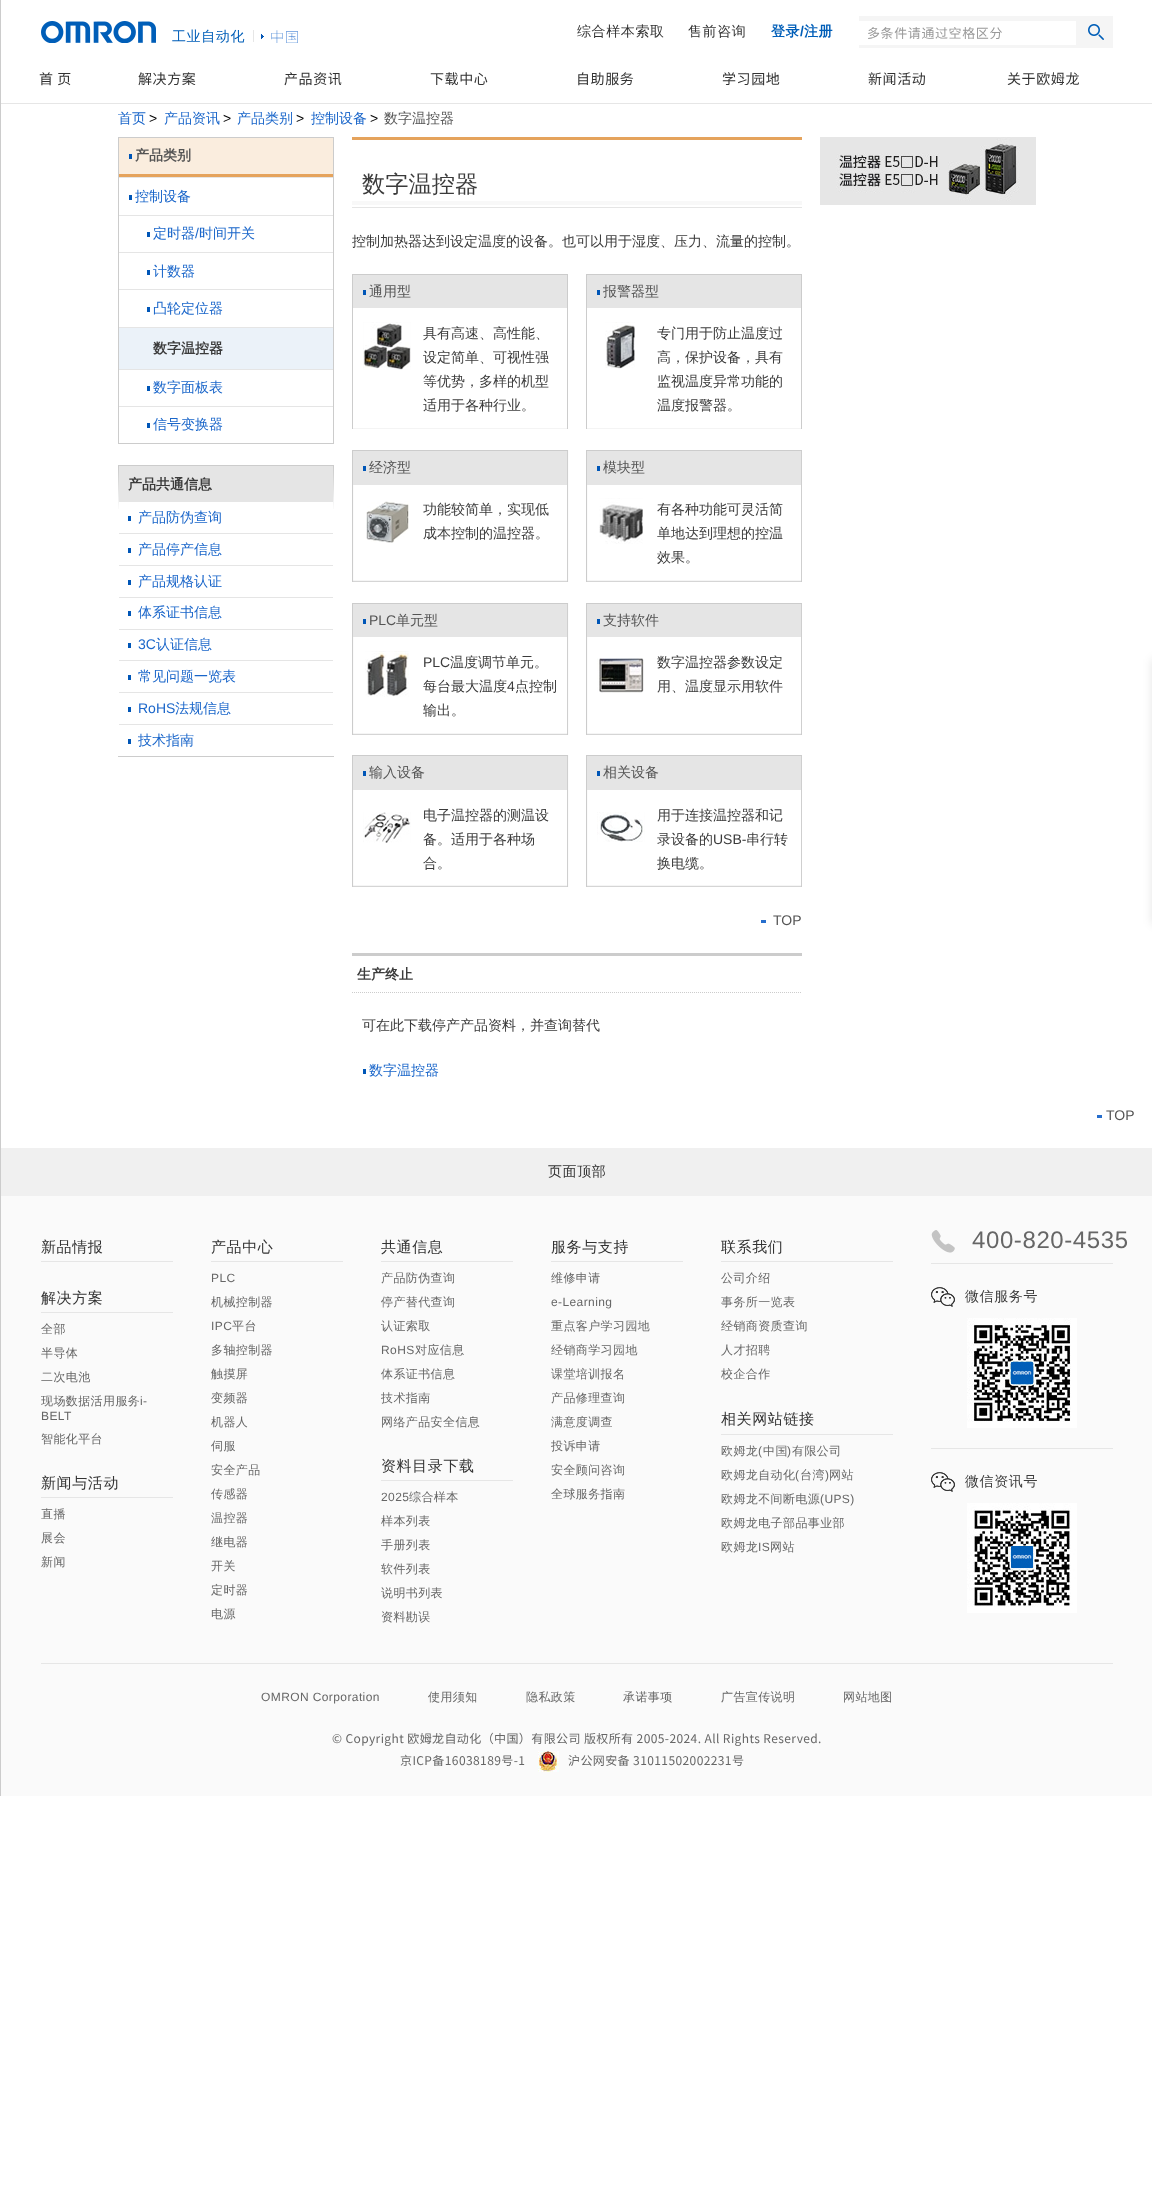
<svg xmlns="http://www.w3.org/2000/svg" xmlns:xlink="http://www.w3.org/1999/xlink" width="1152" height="2196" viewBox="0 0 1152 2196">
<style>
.cls-1{font:500 14px WenQuanYi Zen Hei;letter-spacing:0.6px;fill:#333333}
.cls-2{font:bold 14px WenQuanYi Zen Hei;letter-spacing:0.6px;fill:#005eb8}
.cls-3{font:bold 14px Liberation Sans;letter-spacing:0.6px;fill:#005eb8}
.cls-4{font:13px Noto Sans SC;letter-spacing:0.6px;fill:#999999}
.cls-5{font:14px Noto Sans SC;letter-spacing:0.6px;fill:#333333}
.cls-6{font:500 14px WenQuanYi Zen Hei;letter-spacing:0.6px;fill:#005eb8}
.cls-7{font:100 14px Noto Sans SC;letter-spacing:1px;fill:#1a66ca}
.cls-8{font:500 14px WenQuanYi Zen Hei;fill:#1a66ca}
.cls-9{font:14px Liberation Sans;fill:#000000}
.cls-10{font:500 14px WenQuanYi Zen Hei;fill:#555555}
.cls-11{font:bold 14px WenQuanYi Zen Hei;fill:#555555}
.cls-12{font:14px Liberation Sans;fill:#1a66ca}
.cls-13{font:bold 14px WenQuanYi Zen Hei;fill:#3b3b3b}
.cls-14{font:500 23.25px WenQuanYi Zen Hei;fill:#3b3b3b}
.cls-15{font:500 14px WenQuanYi Zen Hei;fill:#3b3b3b}
.cls-16{font:14px Liberation Sans;fill:#555555}
.cls-17{font:14px Liberation Sans;fill:#3b3b3b}
.cls-18{font:500 15px WenQuanYi Zen Hei;letter-spacing:0.6px;fill:#333333}
.cls-19{font:500 12px WenQuanYi Zen Hei;letter-spacing:0.4px;fill:#666666}
.cls-20{font:12px Liberation Sans;letter-spacing:0.4px;fill:#666666}
.cls-21{font:24px Liberation Sans;letter-spacing:0.6px;fill:#666666}
.cls-22{font:500 14px WenQuanYi Zen Hei;letter-spacing:0.6px;fill:#3b3b3b}
.cls-23{font:12px Noto Sans SC;letter-spacing:0.4px;fill:#666666}
</style>
<rect width="100%" height="100%" fill="#ffffff"/>
<rect fill="#cccccc" x="0" y="0" width="1" height="1796"/>
<rect fill="#e6e6e6" x="1" y="103" width="1151" height="1"/>
<rect fill="#f5f5f5" x="859" y="16" width="254" height="32"/>
<rect fill="#ffffff" x="859" y="21" width="217" height="24"/>
<image xlink:href="image0.png" x="1088" y="24" width="16" height="16"/>
<image xlink:href="image1.png" x="41" y="21" width="115" height="22"/>
<rect fill="#e6e6e6" x="253" y="30" width="1" height="12"/>
<image xlink:href="image2.png" x="261" y="34" width="3" height="5"/>
<rect fill="none" stroke="#cccccc" x="118.5" y="137.5" width="215" height="306"/>
<rect fill="#faedde" x="119" y="138" width="214" height="36"/>
<rect fill="#e5a35c" x="119" y="174" width="214" height="3"/>
<rect fill="#0056b7" x="129" y="154" width="3" height="5"/>
<rect fill="#e5e5e5" x="119" y="177" width="214" height="1"/>
<rect fill="#0056b7" x="129" y="195" width="3" height="5"/>
<rect fill="#e5e5e5" x="119" y="215" width="214" height="1"/>
<rect fill="#0056b7" x="147" y="232" width="3" height="5"/>
<rect fill="#e5e5e5" x="119" y="252" width="214" height="1"/>
<rect fill="#0056b7" x="147" y="270" width="3" height="5"/>
<rect fill="#e5e5e5" x="119" y="289" width="214" height="1"/>
<rect fill="#0056b7" x="147" y="307" width="3" height="5"/>
<rect fill="#ebf2f9" x="119" y="328" width="214" height="41"/>
<rect fill="#e5e5e5" x="119" y="327" width="214" height="1"/>
<rect fill="#e5e5e5" x="119" y="369" width="214" height="1"/>
<rect fill="#0056b7" x="147" y="386" width="3" height="5"/>
<rect fill="#e5e5e5" x="119" y="406" width="214" height="1"/>
<rect fill="#0056b7" x="147" y="423" width="3" height="5"/>
<image xlink:href="image3.png" x="118" y="466" width="216" height="43"/>
<rect fill="#cccccc" x="118" y="465" width="216" height="1"/>
<rect fill="#cccccc" x="118" y="756" width="216" height="1"/>
<rect fill="#e5e5e5" x="119" y="466" width="214" height="36"/>
<rect fill="#ffffff" x="119" y="502" width="214" height="7"/>
<rect fill="#0056b7" x="128" y="516" width="3" height="5"/>
<rect fill="#e5e5e5" x="119" y="533" width="214" height="1"/>
<rect fill="#0056b7" x="128" y="548" width="3" height="5"/>
<rect fill="#e5e5e5" x="119" y="565" width="214" height="1"/>
<rect fill="#0056b7" x="128" y="580" width="3" height="5"/>
<rect fill="#e5e5e5" x="119" y="597" width="214" height="1"/>
<rect fill="#0056b7" x="128" y="611" width="3" height="5"/>
<rect fill="#e5e5e5" x="119" y="629" width="214" height="1"/>
<rect fill="#0056b7" x="128" y="643" width="3" height="5"/>
<rect fill="#e5e5e5" x="119" y="660" width="214" height="1"/>
<rect fill="#0056b7" x="128" y="675" width="3" height="5"/>
<rect fill="#e5e5e5" x="119" y="692" width="214" height="1"/>
<rect fill="#0056b7" x="128" y="707" width="3" height="5"/>
<rect fill="#e5e5e5" x="119" y="724" width="214" height="1"/>
<rect fill="#0056b7" x="128" y="739" width="3" height="5"/>
<rect fill="#f8f8f8" x="352" y="201" width="450" height="4"/>
<rect fill="#e5a35c" x="352" y="137" width="450" height="3"/>
<rect fill="#e5e5e5" x="352" y="207" width="450" height="1"/>
<image xlink:href="image4.png" x="352" y="275" width="450" height="154"/>
<rect fill="#cccccc" x="352" y="274" width="216" height="1"/>
<rect fill="#e5e5e5" x="353" y="275" width="214" height="33"/>
<rect fill="#0056b7" x="363" y="290" width="3" height="5"/>
<image xlink:href="image5.png" x="363" y="322" width="48" height="48"/>
<rect fill="#cccccc" x="586" y="274" width="216" height="1"/>
<rect fill="#e5e5e5" x="587" y="275" width="214" height="33"/>
<rect fill="#0056b7" x="597" y="290" width="3" height="5"/>
<image xlink:href="image6.png" x="605" y="322" width="30" height="47"/>
<image xlink:href="image7.png" x="352" y="450" width="450" height="132"/>
<rect fill="#cccccc" x="352" y="450" width="216" height="1"/>
<rect fill="#e5e5e5" x="353" y="451" width="214" height="34"/>
<rect fill="#0056b7" x="363" y="466" width="3" height="5"/>
<image xlink:href="image8.png" x="366" y="501" width="43" height="42"/>
<rect fill="#cccccc" x="586" y="450" width="216" height="1"/>
<rect fill="#e5e5e5" x="587" y="451" width="214" height="34"/>
<rect fill="#0056b7" x="597" y="466" width="3" height="5"/>
<image xlink:href="image9.png" x="599" y="498" width="44" height="46"/>
<image xlink:href="image7.png" x="352" y="603" width="450" height="132"/>
<rect fill="#cccccc" x="352" y="603" width="216" height="1"/>
<rect fill="#e5e5e5" x="353" y="604" width="214" height="33"/>
<rect fill="#0056b7" x="363" y="619" width="3" height="5"/>
<image xlink:href="image10.png" x="365" y="651" width="44" height="46"/>
<rect fill="#cccccc" x="586" y="603" width="216" height="1"/>
<rect fill="#e5e5e5" x="587" y="604" width="214" height="33"/>
<rect fill="#0056b7" x="597" y="619" width="3" height="5"/>
<image xlink:href="image11.png" x="597" y="658" width="47" height="35"/>
<image xlink:href="image7.png" x="352" y="755" width="450" height="132"/>
<rect fill="#cccccc" x="352" y="755" width="216" height="1"/>
<rect fill="#e5e5e5" x="353" y="756" width="214" height="34"/>
<rect fill="#0056b7" x="363" y="771" width="3" height="5"/>
<image xlink:href="image12.png" x="363" y="812" width="48" height="31"/>
<rect fill="#cccccc" x="586" y="755" width="216" height="1"/>
<rect fill="#e5e5e5" x="587" y="756" width="214" height="34"/>
<rect fill="#0056b7" x="597" y="771" width="3" height="5"/>
<image xlink:href="image13.png" x="597" y="812" width="48" height="30"/>
<rect fill="#266ecd" x="761" y="920" width="5" height="3"/>
<image xlink:href="image14.png" x="352" y="992" width="449" height="1"/>
<rect fill="#cccccc" x="352" y="953" width="450" height="3"/>
<rect fill="#0056b7" x="363" y="1069" width="3" height="5"/>
<image xlink:href="image15.png" x="820" y="137" width="216" height="68"/>
<rect fill="#000000" fill-opacity="0.1" filter="blur(5px)" x="1152" y="659" width="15" height="265"/>
<rect fill="#266ecd" x="1097" y="1115" width="5" height="3"/>
<rect fill="#fafafa" x="1" y="1196" width="1151" height="600"/>
<rect fill="#f0f0f0" x="1" y="1148" width="1151" height="48"/>
<rect fill="#e6e6e6" x="41" y="1663" width="1072" height="1"/>
<rect fill="#e6e6e6" x="41" y="1261" width="132" height="1"/>
<rect fill="#e6e6e6" x="41" y="1312" width="132" height="1"/>
<rect fill="#e6e6e6" x="41" y="1497" width="132" height="1"/>
<rect fill="#e6e6e6" x="211" y="1261" width="132" height="1"/>
<rect fill="#e6e6e6" x="381" y="1261" width="132" height="1"/>
<rect fill="#e6e6e6" x="381" y="1480" width="132" height="1"/>
<rect fill="#e6e6e6" x="551" y="1261" width="132" height="1"/>
<rect fill="#e6e6e6" x="721" y="1261" width="172" height="1"/>
<rect fill="#e6e6e6" x="721" y="1434" width="172" height="1"/>
<rect fill="#e6e6e6" x="931" y="1263" width="182" height="1"/>
<image xlink:href="image16.png" x="931" y="1230" width="24" height="23"/>
<rect fill="#e6e6e6" x="931" y="1448" width="182" height="1"/>
<image xlink:href="image17.png" x="931" y="1287" width="24" height="20"/>
<image xlink:href="image18.png" x="967" y="1318" width="110" height="110"/>
<image xlink:href="image17.png" x="931" y="1472" width="24" height="20"/>
<image xlink:href="image19.png" x="967" y="1503" width="110" height="110"/>
<image xlink:href="image20.png" x="538" y="1751" width="21" height="21"/>
<text class="cls-1" x="577" y="36">综合样本索取</text>
<text class="cls-1" x="688" y="36">售前咨询</text>
<text class="cls-2" x="771" y="36">登录</text>
<text class="cls-3" x="800" y="36">/</text>
<text class="cls-2" x="804" y="36">注册</text>
<text class="cls-4" x="867" y="38">多条件请通过空格区分</text>
<text class="cls-5" x="39" y="84">首 页</text>
<text class="cls-5" x="138" y="84">解决方案</text>
<text class="cls-5" x="284" y="84">产品资讯</text>
<text class="cls-5" x="430" y="84">下载中心</text>
<text class="cls-5" x="576" y="84">自助服务</text>
<text class="cls-5" x="722" y="84">学习园地</text>
<text class="cls-5" x="868" y="84">新闻活动</text>
<text class="cls-5" x="1007" y="84">关于欧姆龙</text>
<text class="cls-6" x="172" y="41">工业自动化</text>
<text class="cls-7" x="270" y="42">中国</text>
<text class="cls-8" x="118" y="123">首页</text>
<text class="cls-9" x="149" y="123">&gt;</text>
<text class="cls-8" x="164" y="123">产品资讯</text>
<text class="cls-9" x="223" y="123">&gt;</text>
<text class="cls-8" x="237" y="123">产品类别</text>
<text class="cls-9" x="296" y="123">&gt;</text>
<text class="cls-8" x="311" y="123">控制设备</text>
<text class="cls-9" x="370" y="123">&gt;</text>
<text class="cls-10" x="384" y="123">数字温控器</text>
<text class="cls-11" x="135" y="160">产品类别</text>
<text class="cls-8" x="135" y="201">控制设备</text>
<text class="cls-8" x="153" y="238">定时器</text>
<text class="cls-12" x="195" y="238">/</text>
<text class="cls-8" x="199" y="238">时间开关</text>
<text class="cls-8" x="153" y="276">计数器</text>
<text class="cls-8" x="153" y="313">凸轮定位器</text>
<text class="cls-13" x="153" y="353">数字温控器</text>
<text class="cls-8" x="153" y="392">数字面板表</text>
<text class="cls-8" x="153" y="429">信号变换器</text>
<text class="cls-13" x="128" y="489">产品共通信息</text>
<text class="cls-8" x="138" y="522">产品防伪查询</text>
<text class="cls-8" x="138" y="554">产品停产信息</text>
<text class="cls-8" x="138" y="586">产品规格认证</text>
<text class="cls-8" x="138" y="617">体系证书信息</text>
<text class="cls-12" x="138" y="649">3C</text>
<text class="cls-8" x="156" y="649">认证信息</text>
<text class="cls-8" x="138" y="681">常见问题一览表</text>
<text class="cls-12" x="138" y="713">RoHS</text>
<text class="cls-8" x="175" y="713">法规信息</text>
<text class="cls-8" x="138" y="745">技术指南</text>
<text class="cls-14" x="362" y="192">数字温控器</text>
<text class="cls-15" x="352" y="246">控制加热器达到设定温度的设备。也可以用于湿度、压力、流量的控制。</text>
<text class="cls-10" x="369" y="296">通用型</text>
<text class="cls-15"><tspan x="423" y="338">具有高速、高性能、</tspan><tspan x="423" y="362">设定简单、可视性强</tspan><tspan x="423" y="386">等优势，多样的机型</tspan><tspan x="423" y="410">适用于各种行业。</tspan></text>
<text class="cls-10" x="603" y="296">报警器型</text>
<text class="cls-15"><tspan x="657" y="338">专门用于防止温度过</tspan><tspan x="657" y="362">高，保护设备，具有</tspan><tspan x="657" y="386">监视温度异常功能的</tspan><tspan x="657" y="410">温度报警器。</tspan></text>
<text class="cls-10" x="369" y="472">经济型</text>
<text class="cls-15"><tspan x="423" y="514">功能较简单，实现低</tspan><tspan x="423" y="538">成本控制的温控器。</tspan></text>
<text class="cls-10" x="603" y="472">模块型</text>
<text class="cls-15"><tspan x="657" y="514">有各种功能可灵活简</tspan><tspan x="657" y="538">单地达到理想的控温</tspan><tspan x="657" y="562">效果。</tspan></text>
<text class="cls-16" x="369" y="625">PLC</text>
<text class="cls-10" x="396" y="625">单元型</text>
<text class="cls-17" x="423" y="667">PLC</text>
<text class="cls-15" x="450" y="667">温度调节单元。</text>
<text class="cls-15" x="423" y="691">每台最大温度</text>
<text class="cls-17" x="507" y="691">4</text>
<text class="cls-15" x="515" y="691">点控制</text>
<text class="cls-15" x="423" y="715">输出。</text>
<text class="cls-10" x="603" y="625">支持软件</text>
<text class="cls-15"><tspan x="657" y="667">数字温控器参数设定</tspan><tspan x="657" y="691">用、温度显示用软件</tspan></text>
<text class="cls-10" x="369" y="777">输入设备</text>
<text class="cls-15"><tspan x="423" y="820">电子温控器的测温设</tspan><tspan x="423" y="844">备。适用于各种场</tspan><tspan x="423" y="868">合。</tspan></text>
<text class="cls-10" x="603" y="777">相关设备</text>
<text class="cls-15"><tspan x="657" y="820">用于连接温控器和记</tspan><tspan x="657" y="844">录设备的</tspan></text>
<text class="cls-17" x="713" y="844">USB-</text>
<text class="cls-15" x="746" y="844">串行转</text>
<text class="cls-15" x="657" y="868">换电缆。</text>
<text class="cls-16" x="773" y="925">TOP</text>
<text class="cls-13" x="357" y="979">生产终止</text>
<text class="cls-15" x="362" y="1030">可在此下载停产产品资料，并查询替代</text>
<text class="cls-8" x="369" y="1075">数字温控器</text>
<text class="cls-16" x="1106" y="1120">TOP</text>
<text class="cls-1" x="548" y="1176">页面顶部</text>
<text class="cls-18" x="41" y="1252">新品情报</text>
<text class="cls-18" x="41" y="1303">解决方案</text>
<text class="cls-19" x="41" y="1333">全部</text>
<text class="cls-19" x="41" y="1357">半导体</text>
<text class="cls-19" x="41" y="1381">二次电池</text>
<text class="cls-19" x="41" y="1405">现场数据活用服务</text>
<text class="cls-20" x="140" y="1405">i-</text>
<text class="cls-20" x="41" y="1420">BELT</text>
<text class="cls-19" x="41" y="1443">智能化平台</text>
<text class="cls-18" x="41" y="1488">新闻与活动</text>
<text class="cls-19" x="41" y="1518">直播</text>
<text class="cls-19" x="41" y="1542">展会</text>
<text class="cls-19" x="41" y="1566">新闻</text>
<text class="cls-18" x="211" y="1252">产品中心</text>
<text class="cls-20" x="211" y="1282">PLC</text>
<text class="cls-19" x="211" y="1306">机械控制器</text>
<text class="cls-20" x="211" y="1330">IPC</text>
<text class="cls-19" x="232" y="1330">平台</text>
<text class="cls-19" x="211" y="1354">多轴控制器</text>
<text class="cls-19" x="211" y="1378">触摸屏</text>
<text class="cls-19" x="211" y="1402">变频器</text>
<text class="cls-19" x="211" y="1426">机器人</text>
<text class="cls-19" x="211" y="1450">伺服</text>
<text class="cls-19" x="211" y="1474">安全产品</text>
<text class="cls-19" x="211" y="1498">传感器</text>
<text class="cls-19" x="211" y="1522">温控器</text>
<text class="cls-19" x="211" y="1546">继电器</text>
<text class="cls-19" x="211" y="1570">开关</text>
<text class="cls-19" x="211" y="1594">定时器</text>
<text class="cls-19" x="211" y="1618">电源</text>
<text class="cls-18" x="381" y="1252">共通信息</text>
<text class="cls-19" x="381" y="1282">产品防伪查询</text>
<text class="cls-19" x="381" y="1306">停产替代查询</text>
<text class="cls-19" x="381" y="1330">认证索取</text>
<text class="cls-20" x="381" y="1354">RoHS</text>
<text class="cls-19" x="415" y="1354">对应信息</text>
<text class="cls-19" x="381" y="1378">体系证书信息</text>
<text class="cls-19" x="381" y="1402">技术指南</text>
<text class="cls-19" x="381" y="1426">网络产品安全信息</text>
<text class="cls-18" x="381" y="1471">资料目录下载</text>
<text class="cls-20" x="381" y="1501">2025</text>
<text class="cls-19" x="409" y="1501">综合样本</text>
<text class="cls-19" x="381" y="1525">样本列表</text>
<text class="cls-19" x="381" y="1549">手册列表</text>
<text class="cls-19" x="381" y="1573">软件列表</text>
<text class="cls-19" x="381" y="1597">说明书列表</text>
<text class="cls-19" x="381" y="1621">资料勘误</text>
<text class="cls-18" x="551" y="1252">服务与支持</text>
<text class="cls-19" x="551" y="1282">维修申请</text>
<text class="cls-20" x="551" y="1306">e-Learning</text>
<text class="cls-19" x="551" y="1330">重点客户学习园地</text>
<text class="cls-19" x="551" y="1354">经销商学习园地</text>
<text class="cls-19" x="551" y="1378">课堂培训报名</text>
<text class="cls-19" x="551" y="1402">产品修理查询</text>
<text class="cls-19" x="551" y="1426">满意度调查</text>
<text class="cls-19" x="551" y="1450">投诉申请</text>
<text class="cls-19" x="551" y="1474">安全顾问咨询</text>
<text class="cls-19" x="551" y="1498">全球服务指南</text>
<text class="cls-18" x="721" y="1252">联系我们</text>
<text class="cls-19" x="721" y="1282">公司介绍</text>
<text class="cls-19" x="721" y="1306">事务所一览表</text>
<text class="cls-19" x="721" y="1330">经销商资质查询</text>
<text class="cls-19" x="721" y="1354">人才招聘</text>
<text class="cls-19" x="721" y="1378">校企合作</text>
<text class="cls-18" x="721" y="1424">相关网站链接</text>
<text class="cls-19" x="721" y="1455">欧姆龙</text>
<text class="cls-20" x="758" y="1455">(</text>
<text class="cls-19" x="763" y="1455">中国</text>
<text class="cls-20" x="787" y="1455">)</text>
<text class="cls-19" x="792" y="1455">有限公司</text>
<text class="cls-19" x="721" y="1479">欧姆龙自动化</text>
<text class="cls-20" x="795" y="1479">(</text>
<text class="cls-19" x="800" y="1479">台湾</text>
<text class="cls-20" x="825" y="1479">)</text>
<text class="cls-19" x="829" y="1479">网站</text>
<text class="cls-19" x="721" y="1503">欧姆龙不间断电源</text>
<text class="cls-20" x="820" y="1503">(UPS)</text>
<text class="cls-19" x="721" y="1527">欧姆龙电子部品事业部</text>
<text class="cls-19" x="721" y="1551">欧姆龙</text>
<text class="cls-20" x="758" y="1551">IS</text>
<text class="cls-19" x="770" y="1551">网站</text>
<text class="cls-21" x="972" y="1248">400-820-4535</text>
<text class="cls-22" x="965" y="1301">微信服务号</text>
<text class="cls-22" x="965" y="1486">微信资讯号</text>
<text class="cls-20" x="261" y="1701">OMRON Corporation</text>
<text class="cls-19" x="428" y="1701">使用须知</text>
<text class="cls-19" x="526" y="1701">隐私政策</text>
<text class="cls-19" x="623" y="1701">承诺事项</text>
<text class="cls-19" x="721" y="1701">广告宣传说明</text>
<text class="cls-19" x="843" y="1701">网站地图</text>
<text class="cls-23" x="332" y="1743">© Copyright 欧姆龙自动化（中国）有限公司 版权所有 2005-2024. All Rights Reserved.</text>
<text class="cls-23" x="400" y="1765">京ICP备16038189号-1</text>
<text class="cls-23" x="568" y="1765">沪公网安备 31011502002231号</text>
</svg>
